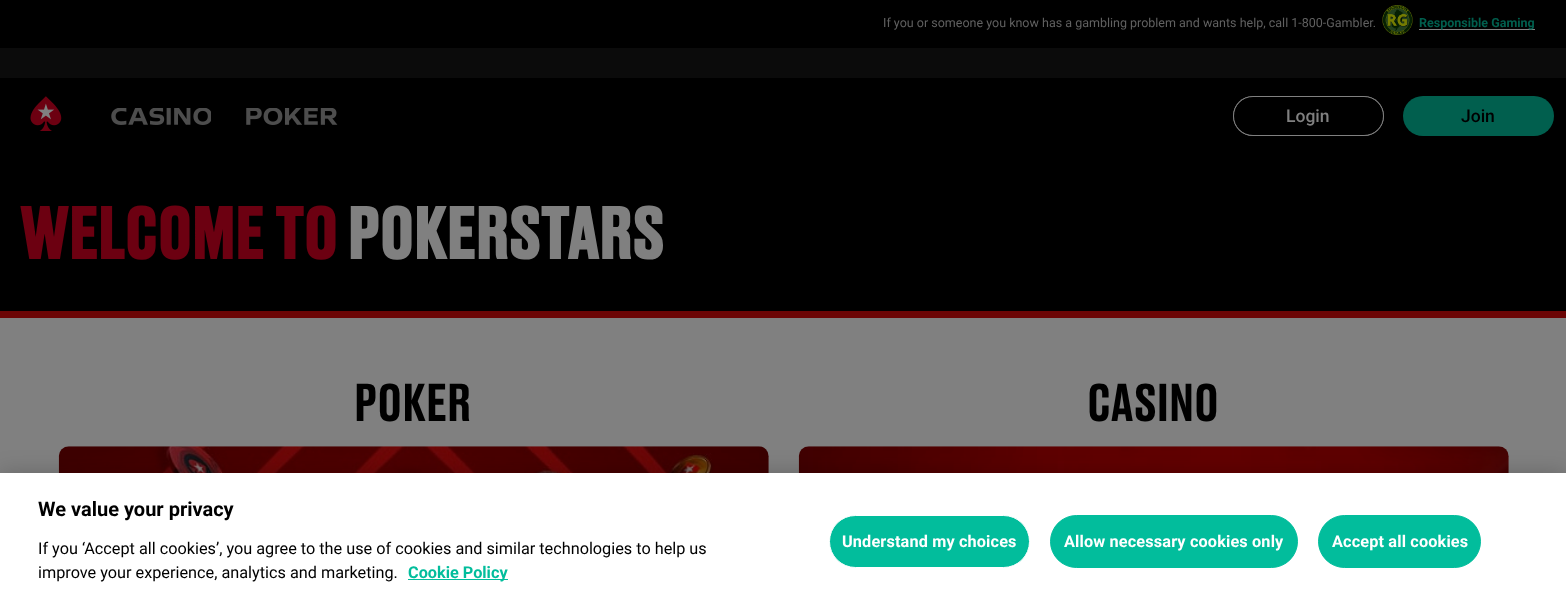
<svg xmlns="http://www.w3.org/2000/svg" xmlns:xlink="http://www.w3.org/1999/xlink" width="1566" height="609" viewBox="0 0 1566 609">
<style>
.cls-1{font:12.5px Roboto;fill:#606060}
.cls-2{font:bold 12.5px Roboto;fill:#015f4e}
.cls-3{font:500 17.5px Roboto;fill:#808080}
.cls-4{font:500 17.5px Roboto;fill:#000000}
.cls-5{font:bold 68.75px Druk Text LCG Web;fill:#6c0011}
.cls-6{font:bold 68.75px Druk Text LCG Web;fill:#808080}
.cls-7{font:500 50px Druk Text LCG Web;fill:#000000}
.cls-8{font:bold 20px Roboto;fill:#000000}
.cls-9{font:16.25px Roboto;fill:#000000}
.cls-10{font:bold 16.25px Roboto;fill:#02bd9c}
.cls-11{font:bold 16.25px Roboto;letter-spacing:0.15px;fill:#ffffff}
</style>
<rect width="100%" height="100%" fill="#000000"/>
<image xlink:href="image0.png" x="1382" y="5" width="31" height="30"/>
<rect fill="#808080" x="1419" y="29" width="116" height="1"/>
<rect fill="#0b0b0b" x="0" y="48" width="1566" height="30"/>
<image xlink:href="image1.png" x="30" y="96" width="32" height="35"/>
<image xlink:href="image2.png" x="111" y="108" width="100" height="17"/>
<image xlink:href="image3.png" x="246" y="108" width="92" height="17"/>
<rect fill="#808080" filter="blur(0.5px)" x="1233" y="96" width="151" height="40" rx="20"/>
<rect fill="#000000" stroke="#808080" x="1233.5" y="96.5" width="150" height="39" rx="19.5"/>
<rect fill="#015f4e" x="1403" y="96" width="151" height="40" rx="20"/>
<rect fill="#808080" x="0" y="318" width="1566" height="155"/>
<rect fill="#6c0505" x="0" y="311" width="1566" height="7"/>
<image xlink:href="image4.png" x="58" y="446" width="711" height="27"/>
<image xlink:href="image5.png" x="798" y="446" width="711" height="27"/>
<rect fill="#000000" fill-opacity="0.2" filter="blur(11px)" x="0" y="473" width="1566" height="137"/>
<rect fill="#ffffff" x="0" y="473" width="1566" height="136"/>
<rect fill="#02bd9c" x="408" y="579" width="100" height="1"/>
<rect fill="#02bd9c" stroke="#ffffff" x="829.5" y="515.5" width="200" height="52" rx="26"/>
<rect fill="#02bd9c" stroke="#02bd9c" x="1050.5" y="515.5" width="247" height="52" rx="26"/>
<rect fill="#02bd9c" stroke="#02bd9c" x="1318.5" y="515.5" width="162" height="52" rx="26"/>
<text class="cls-1" x="883" y="27">If you or someone you know has a gambling problem and wants help, call 1-800-Gambler.</text>
<text class="cls-2" x="1419" y="27">Responsible Gaming</text>
<text class="cls-3" x="1286" y="122">Login</text>
<text class="cls-4" x="1461" y="122">Join</text>
<text class="cls-5" x="19" y="259">WELCOME TO</text>
<text class="cls-6" x="347" y="259">POKERSTARS</text>
<text class="cls-7" x="354" y="421">POKER</text>
<text class="cls-7" x="1087" y="421">CASINO</text>
<text class="cls-8" x="38" y="516">We value your privacy</text>
<text class="cls-9"><tspan x="38" y="554">If you ‘Accept all cookies’, you agree to the use of cookies and similar technologies to help us</tspan><tspan x="38" y="578">improve your experience, analytics and marketing.</tspan></text>
<text class="cls-10" x="408" y="578">Cookie Policy</text>
<text class="cls-11" x="842" y="547">Understand my choices</text>
<text class="cls-11" x="1064" y="547">Allow necessary cookies only</text>
<text class="cls-11" x="1332" y="547">Accept all cookies</text>
</svg>
